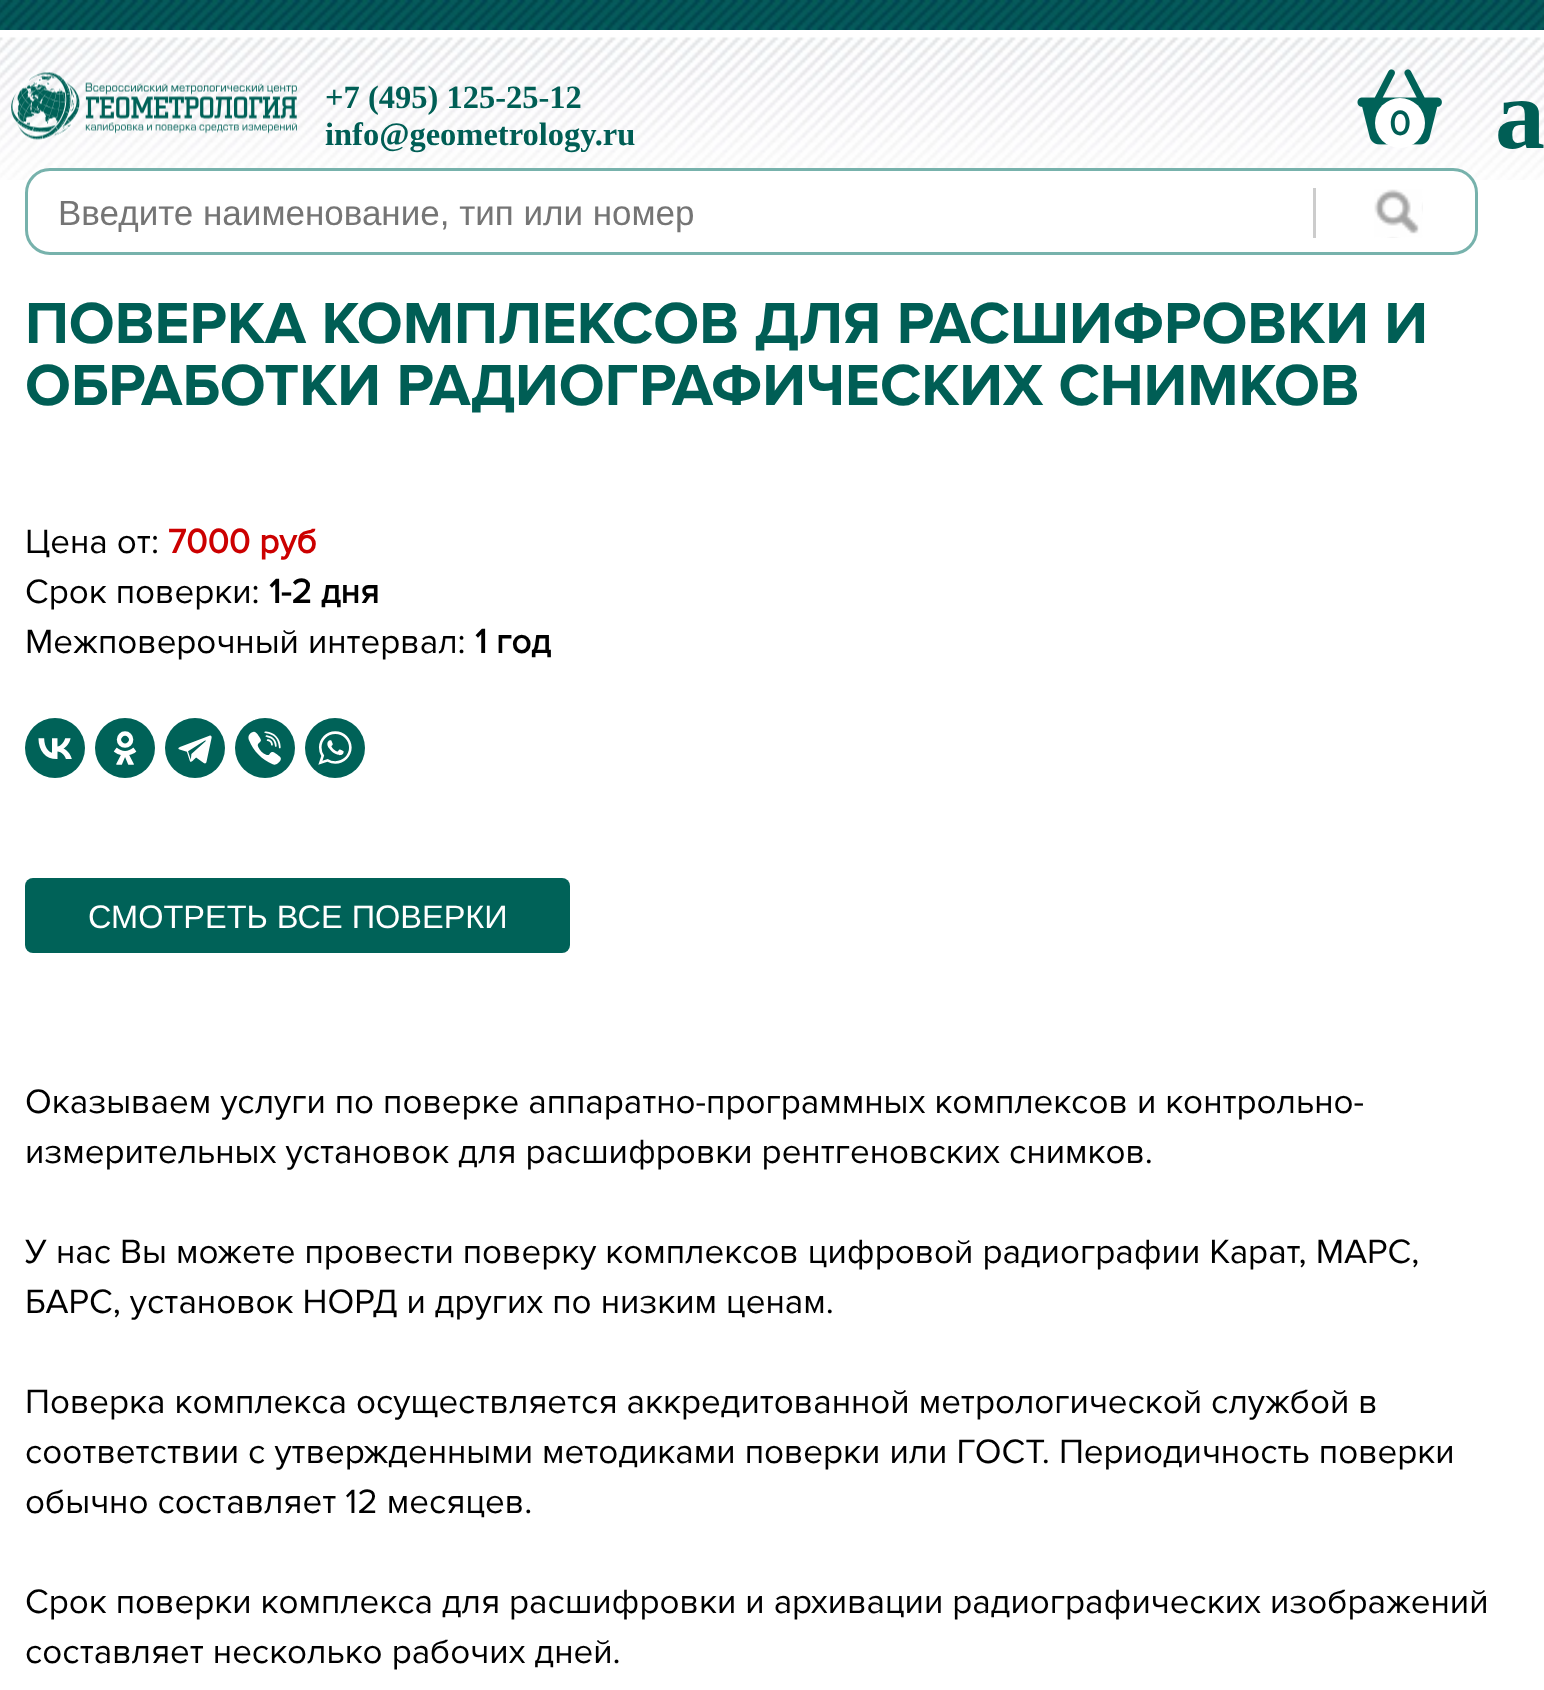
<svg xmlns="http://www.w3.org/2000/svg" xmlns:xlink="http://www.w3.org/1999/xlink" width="1544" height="1690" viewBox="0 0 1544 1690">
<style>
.cls-1{font:bold 32.5px Liberation Serif;fill:#005e55}
.cls-2{font:bold 35px Proxima Nova;fill:#005e55}
.cls-3{font:bold 100px Liberation Serif;fill:#005e55}
.cls-4{font:35px Liberation Sans;fill:#757575}
.cls-5{font:bold 60px 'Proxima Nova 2';fill:#005e55}
.cls-6{font:35px Proxima Nova;fill:#000000}
.cls-7{font:bold 35px Proxima Nova;fill:#cc0000}
.cls-8{font:bold 35px Proxima Nova;fill:#000000}
.cls-9{font:32.5px Liberation Sans;fill:#ffffff}
</style>
<rect width="100%" height="100%" fill="#ffffff"/>
<image xlink:href="image0.png" x="0" y="37" width="1544" height="143"/>
<image xlink:href="image1.png" x="0" y="0" width="1544" height="30"/>
<image xlink:href="image2.png" x="11" y="72" width="286" height="68"/>
<image xlink:href="image3.png" x="1357" y="69" width="85" height="76"/>
<circle fill="#ffffff" cx="1400" cy="123" r="25"/>
<rect fill="#ffffff" stroke="#77b2ac" stroke-width="3" x="26.5" y="169.5" width="1450" height="84" rx="23.5"/>
<rect fill="#cccccc" x="1313" y="188" width="3" height="50"/>
<image xlink:href="image4.png" x="1374" y="189" width="49" height="49"/>
<circle fill="#006258" cx="55" cy="748" r="30"/>
<image xlink:href="image5.png" x="38" y="738" width="34" height="21"/>
<circle fill="#006258" cx="125" cy="748" r="30"/>
<image xlink:href="image6.png" x="113" y="731" width="24" height="34"/>
<circle fill="#006258" cx="195" cy="748" r="30"/>
<image xlink:href="image7.png" x="178" y="735" width="34" height="29"/>
<circle fill="#006258" cx="265" cy="748" r="30"/>
<image xlink:href="image8.png" x="248" y="731" width="33" height="34"/>
<circle fill="#006258" cx="335" cy="748" r="30"/>
<image xlink:href="image9.png" x="318" y="731" width="34" height="34"/>
<rect fill="#006258" x="25" y="878" width="545" height="75" rx="8"/>
<text class="cls-1"><tspan x="325" y="108">+7 (495) 125-25-12</tspan><tspan x="325" y="145">info@geometrology.ru</tspan></text>
<text class="cls-2" x="1389" y="135">0</text>
<text class="cls-3" x="1495" y="148">a</text>
<text class="cls-4" x="58" y="225">Введите наименование, тип или номер</text>
<text class="cls-5"><tspan x="25" y="343">ПОВЕРКА КОМПЛЕКСОВ ДЛЯ РАСШИФРОВКИ И</tspan><tspan x="25" y="405">ОБРАБОТКИ РАДИОГРАФИЧЕСКИХ СНИМКОВ</tspan></text>
<text class="cls-6" x="25" y="553">Цена от:</text>
<text class="cls-7" x="168" y="553">7000 руб</text>
<text class="cls-6" x="25" y="603">Срок поверки:</text>
<text class="cls-8" x="269" y="603">1-2 дня</text>
<text class="cls-6" x="25" y="653">Межповерочный интервал:</text>
<text class="cls-8" x="475" y="653">1 год</text>
<text class="cls-9" x="88" y="928">СМОТРЕТЬ ВСЕ ПОВЕРКИ</text>
<text class="cls-6"><tspan x="25" y="1113">Оказываем услуги по поверке аппаратно-программных комплексов и контрольно-</tspan><tspan x="25" y="1163">измерительных установок для расшифровки рентгеновских снимков.</tspan></text>
<text class="cls-6"><tspan x="25" y="1263">У нас Вы можете провести поверку комплексов цифровой радиографии Карат, МАРС,</tspan><tspan x="25" y="1313">БАРС, установок НОРД и других по низким ценам.</tspan></text>
<text class="cls-6"><tspan x="25" y="1413">Поверка комплекса осуществляется аккредитованной метрологической службой в</tspan><tspan x="25" y="1463">соответствии с утвержденными методиками поверки или ГОСТ. Периодичность поверки</tspan><tspan x="25" y="1513">обычно составляет 12 месяцев.</tspan></text>
<text class="cls-6"><tspan x="25" y="1613">Срок поверки комплекса для расшифровки и архивации радиографических изображений</tspan><tspan x="25" y="1663">составляет несколько рабочих дней.</tspan></text>
</svg>
